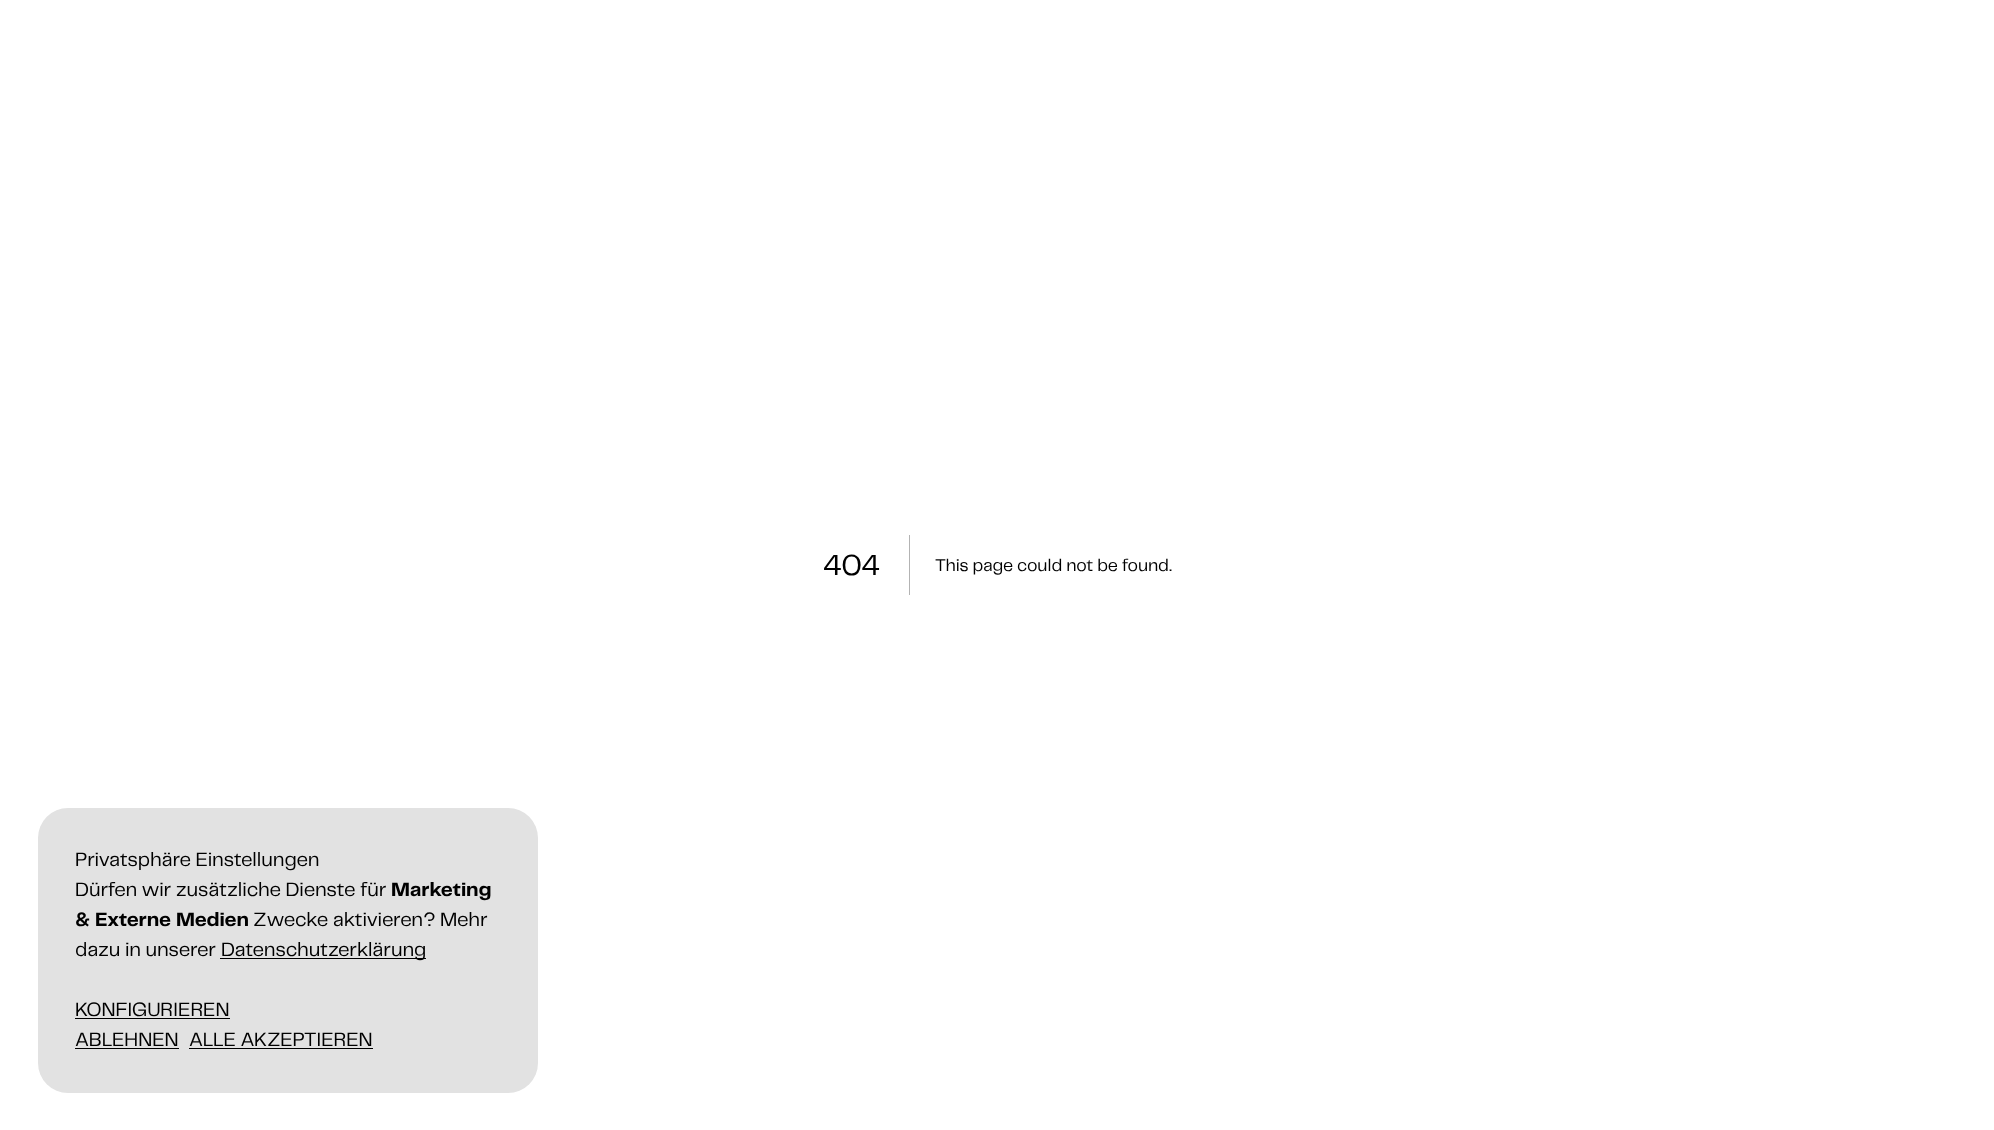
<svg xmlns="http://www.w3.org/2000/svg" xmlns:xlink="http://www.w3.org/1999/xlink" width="1994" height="1130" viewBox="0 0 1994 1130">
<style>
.cls-1{font:30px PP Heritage;fill:#000000}
.cls-2{font:17.5px PP Heritage;fill:#000000}
.cls-3{font:20px PP Heritage;fill:#000000}
.cls-4{font:bold 20px PP Heritage;fill:#000000}
</style>
<rect width="100%" height="100%" fill="#ffffff"/>
<rect fill="#b3b3b3" x="909" y="535" width="1" height="60"/>
<rect fill="#e2e2e2" x="38" y="808" width="500" height="285" rx="30"/>
<rect fill="#000000" x="220" y="958" width="206" height="1"/>
<rect fill="#000000" x="75" y="1018" width="155" height="1"/>
<rect fill="#000000" x="75" y="1048" width="104" height="1"/>
<rect fill="#000000" x="189" y="1048" width="184" height="1"/>
<text class="cls-1" x="823" y="575">404</text>
<text class="cls-2" x="935" y="571">This page could not be found.</text>
<text class="cls-3"><tspan x="75" y="866">Privatsphäre Einstellungen</tspan><tspan x="75" y="896">Dürfen wir zusätzliche Dienste für</tspan></text>
<text class="cls-4" x="391" y="896">Marketing</text>
<text class="cls-4" x="75" y="926">&amp; Externe Medien</text>
<text class="cls-3" x="253" y="926">Zwecke aktivieren? Mehr</text>
<text class="cls-3" x="75" y="956">dazu in unserer</text>
<text class="cls-3" x="221" y="956">Datenschutzerklärung</text>
<text class="cls-3"><tspan x="75" y="1016">KONFIGURIEREN</tspan><tspan x="75" y="1046">ABLEHNEN</tspan></text>
<text class="cls-3" x="189" y="1046">ALLE AKZEPTIEREN</text>
</svg>
